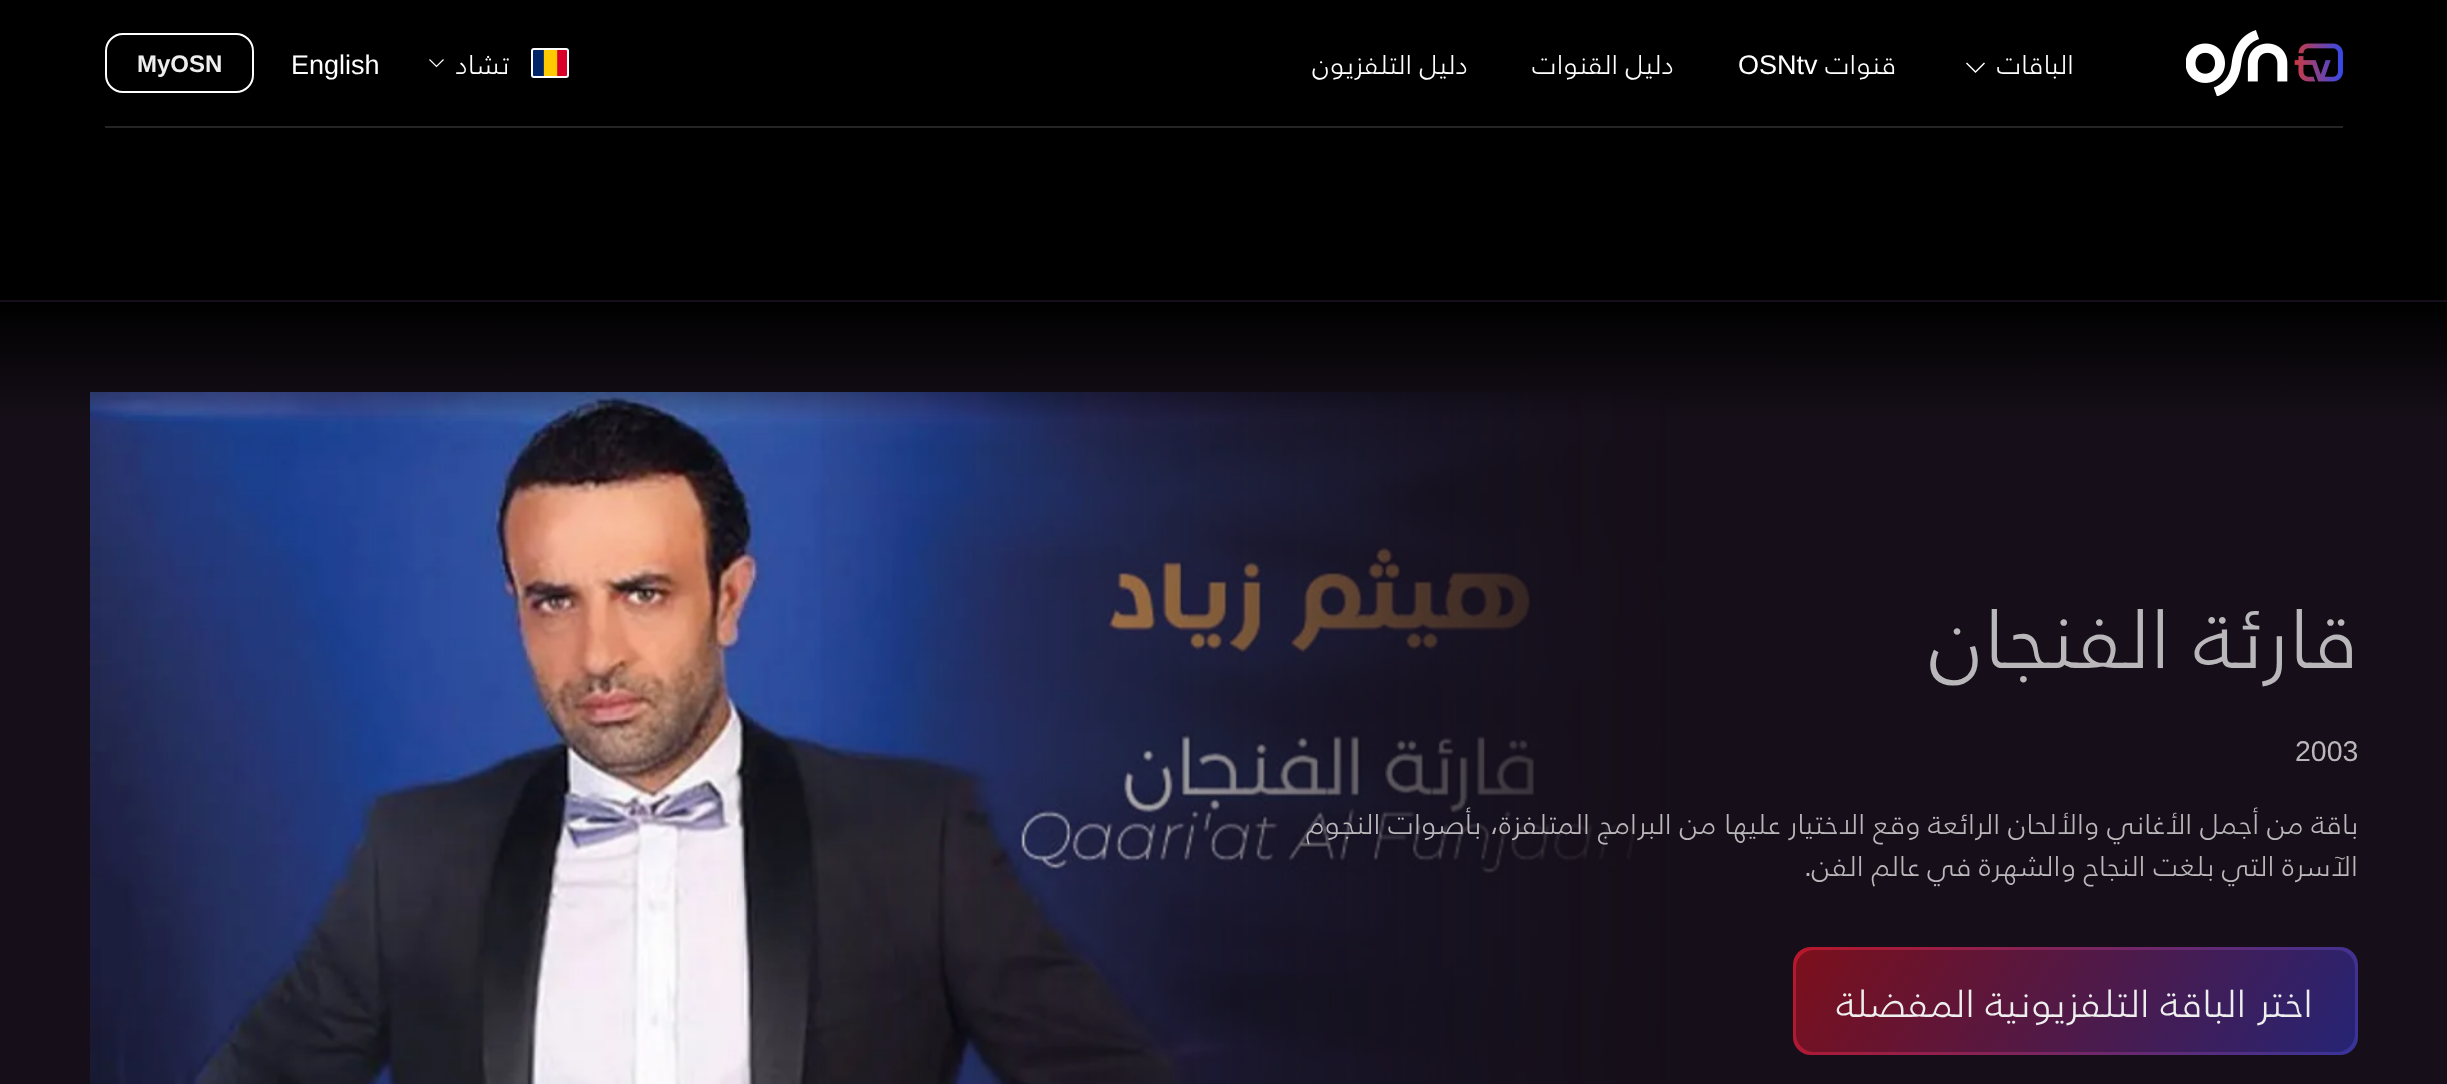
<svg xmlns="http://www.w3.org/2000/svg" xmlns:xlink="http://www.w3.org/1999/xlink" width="2447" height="1084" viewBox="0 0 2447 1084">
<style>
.cls-1{font:300 27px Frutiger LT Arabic;direction:rtl;fill:#ffffff}
.cls-2{font:27px Liberation Sans;fill:#ffffff}
.cls-3{font:bold 24px Liberation Sans;fill:#eeeeee}
.cls-4{font:300 84px Frutiger LT Arabic;direction:rtl;fill:#b9b7ba}
.cls-5{font:28.5px Liberation Sans;fill:#b9b7ba}
.cls-6{font:300 28.5px Frutiger LT Arabic;direction:rtl;fill:#b9b7ba}
.cls-7{font:28.5px Liberation Sans;direction:rtl;fill:#b9b7ba}
.cls-8{font:300 39px Frutiger LT Arabic;direction:rtl;fill:#eeeeee}
</style>
<defs>
<linearGradient id="g1" gradientUnits="userSpaceOnUse" x1="1224" y1="422" x2="1224" y2="302"><stop offset="0" stop-color="#000000" stop-opacity="0"/><stop offset="1" stop-color="#000000"/></linearGradient>
<linearGradient id="g2" gradientUnits="userSpaceOnUse" x1="2322" y1="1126" x2="1829" y2="875"><stop offset="0" stop-color="#38349a"/><stop offset="1" stop-color="#ba172a"/></linearGradient>
<linearGradient id="g3" gradientUnits="userSpaceOnUse" x1="1851" y1="860" x2="2299" y2="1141"><stop offset="0" stop-color="#7c0f1b"/><stop offset="1" stop-color="#262474"/></linearGradient>
</defs>
<rect width="100%" height="100%" fill="#000000"/>
<rect fill="#242424" x="105" y="126" width="2238" height="2"/>
<image xlink:href="image0.png" x="2186" y="30" width="157" height="66"/>
<path fill="none" stroke="#ffffff" stroke-width="1.5" d="M1984.5 63L1975.5 72L1966.5 63"/>
<image xlink:href="image1.png" x="533" y="50" width="36" height="26"/>
<rect fill="none" stroke="#ffffff" stroke-width="2" x="532" y="49" width="36" height="28" rx="2"/>
<path fill="none" stroke="#ffffff" stroke-width="1.2" d="M443.5 59.5L436.5 66.5L429.5 59.5"/>
<rect fill="none" stroke="#ffffff" stroke-width="2" x="106" y="34" width="147" height="58" rx="17"/>
<rect fill="#160f19" x="0" y="300" width="2447" height="2"/>
<rect fill="#160f19" x="0" y="303" width="2447" height="781"/>
<image xlink:href="image2.png" x="90" y="392" width="1604" height="692"/>
<image xlink:href="image3.png" x="821" y="392" width="873" height="692"/>
<rect fill="url(#g1)" x="0" y="303" width="2447" height="116"/>
<rect fill="url(#g2)" x="1793" y="947" width="565" height="108" rx="18"/>
<rect fill="url(#g3)" x="1796" y="950" width="559" height="102" rx="18"/>
<text class="cls-1" x="2074" y="74">الباقات</text>
<text class="cls-1" x="1896" y="74">قنوات</text>
<text class="cls-2" x="1738" y="74">OSNtv</text>
<text class="cls-1" x="1674" y="74">دليل القنوات</text>
<text class="cls-1" x="1468" y="74">دليل التلفزيون</text>
<text class="cls-1" x="509" y="74">تشاد</text>
<text class="cls-2" x="291" y="74">English</text>
<text class="cls-3" x="137" y="72">MyOSN</text>
<text class="cls-4" x="2358" y="668">قارئة الفنجان</text>
<text class="cls-5" x="2295" y="761">2003</text>
<text class="cls-6"><tspan x="2358" y="834">باقة من أجمل الأغاني والألحان الرائعة وقع الاختيار عليها من البرامج المتلفزة، بأصوات النجوم</tspan><tspan x="2358" y="876">الآسرة التي بلغت النجاح والشهرة في عالم الفن</tspan></text>
<text class="cls-7" x="1812" y="876">.</text>
<text class="cls-8" x="2313" y="1017">اختر الباقة التلفزيونية المفضلة</text>
</svg>
